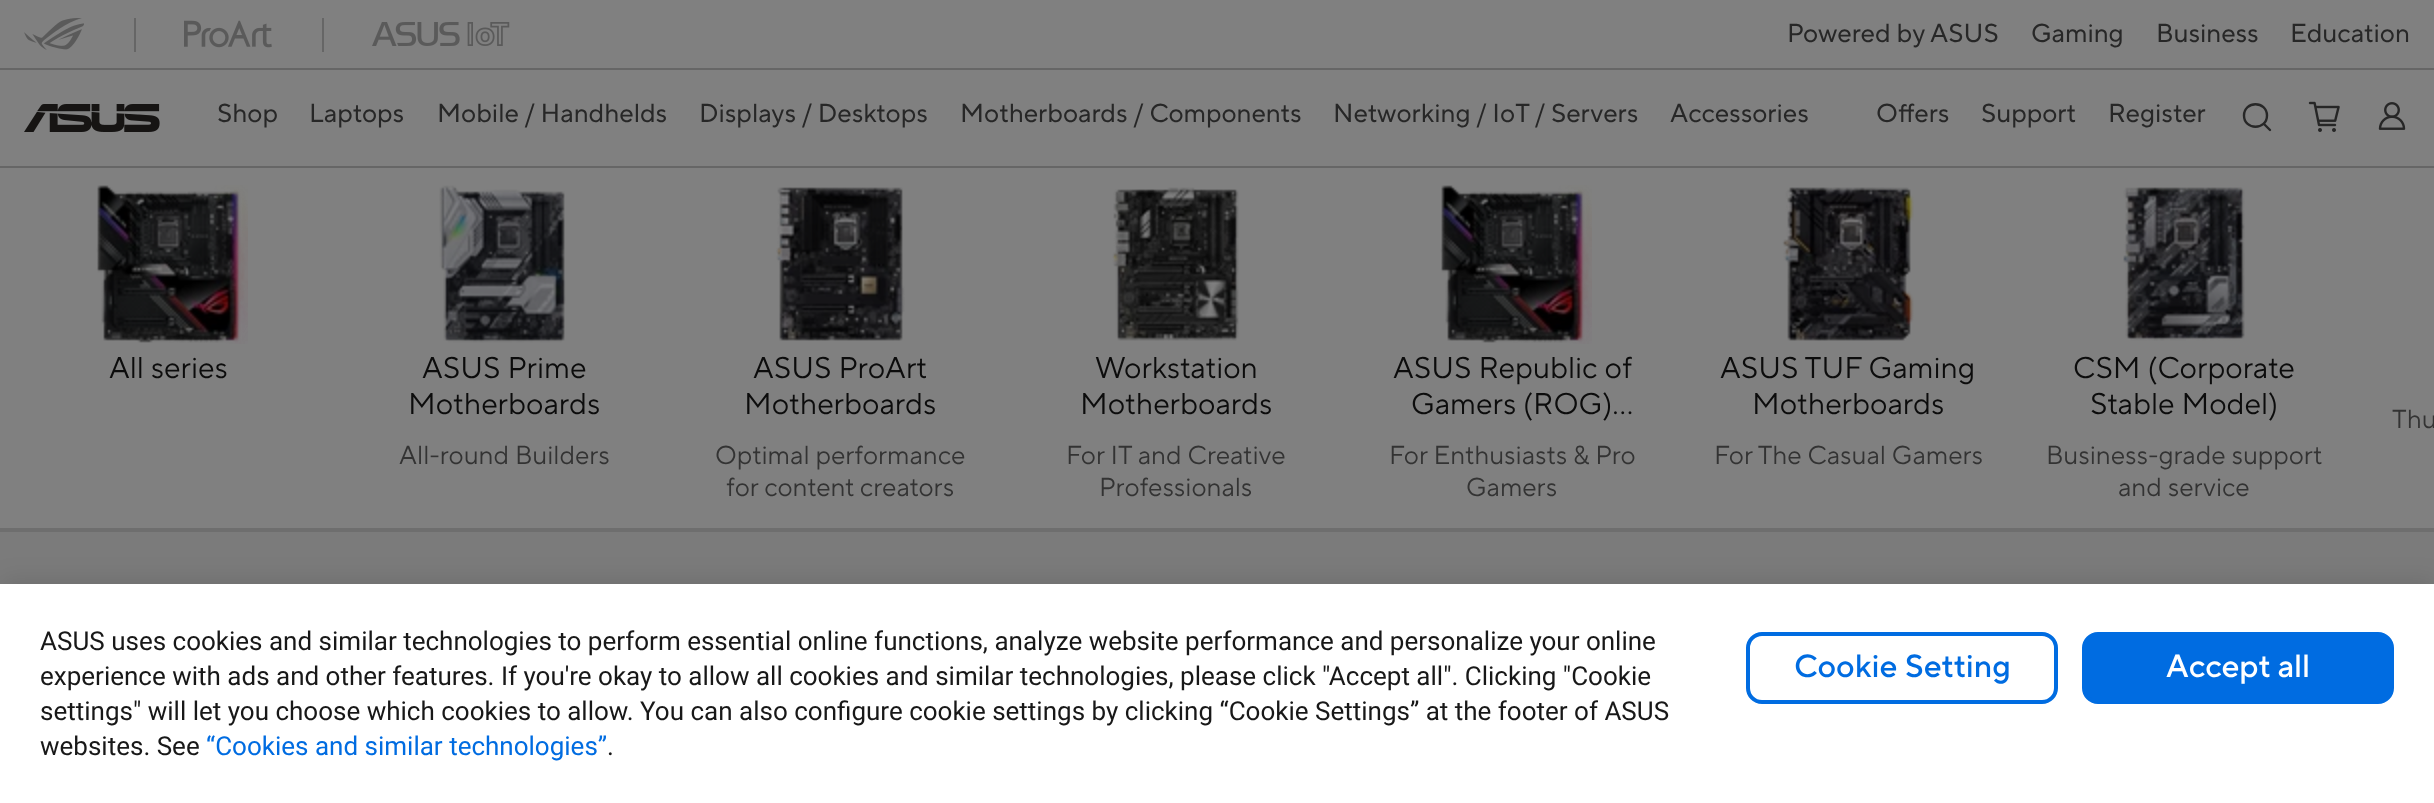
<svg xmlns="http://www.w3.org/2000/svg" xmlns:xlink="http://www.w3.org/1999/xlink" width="2434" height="803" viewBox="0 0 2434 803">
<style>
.cls-1{font:26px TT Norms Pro;fill:#272727}
.cls-2{font:30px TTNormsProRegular;fill:#0c0c0c}
.cls-3{font:26px TTNormsProRegular;fill:#333333}
.cls-4{font:26px Roboto;fill:#181818}
.cls-5{font:26px Roboto;fill:#006ce1}
.cls-6{font:500 32px TT Norms Pro;fill:#006ce1}
.cls-7{font:500 32px TT Norms Pro;fill:#ffffff}
</style>
<rect width="100%" height="100%" fill="#808080"/>
<rect fill="#666666" x="0" y="166" width="2434" height="2"/>
<rect fill="#666666" x="134" y="18" width="2" height="34"/>
<image xlink:href="image0.png" x="24" y="18" width="60" height="32"/>
<rect fill="#666666" x="322" y="18" width="2" height="34"/>
<image xlink:href="image1.png" x="184" y="20" width="88" height="28"/>
<image xlink:href="image2.png" x="372" y="22" width="138" height="24"/>
<rect fill="#666666" x="0" y="68" width="2434" height="2"/>
<image xlink:href="image3.png" x="24" y="104" width="136" height="28"/>
<path fill="none" stroke="#272727" stroke-width="2.4" stroke-linecap="round" d="M2264 124L2270 130M2267 115.5C2267 130.5 2244 130.5 2244 115.5C2244 100.5 2267 100.5 2267 115.5Z"/>
<image xlink:href="image4.png" x="2308" y="101" width="32" height="31"/>
<image xlink:href="image5.png" x="2378" y="102" width="28" height="28"/>
<image xlink:href="image6.png" x="96" y="185" width="152" height="159"/>
<image xlink:href="image7.png" x="439" y="185" width="127" height="158"/>
<image xlink:href="image8.png" x="776" y="187" width="129" height="154"/>
<image xlink:href="image9.png" x="1112" y="187" width="127" height="154"/>
<image xlink:href="image6.png" x="1440" y="185" width="152" height="159"/>
<image xlink:href="image10.png" x="1782" y="187" width="132" height="154"/>
<image xlink:href="image11.png" x="2123" y="187" width="122" height="154"/>
<rect fill="#6e6e6e" x="0" y="528" width="2434" height="4"/>
<rect fill="#7b7b7b" x="0" y="532" width="2434" height="52"/>
<rect fill="#000000" fill-opacity="0.1" filter="blur(12px)" x="2" y="580" width="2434" height="220"/>
<rect fill="#ffffff" x="0" y="584" width="2434" height="219"/>
<rect fill="none" stroke="#006ce1" stroke-width="4" x="1748" y="634" width="308" height="68" rx="14"/>
<rect fill="#006ce1" stroke="#006ce1" stroke-width="4" x="2084" y="634" width="308" height="68" rx="14"/>
<text class="cls-1" x="1787" y="42">Powered by ASUS</text>
<text class="cls-1" x="2031" y="42">Gaming</text>
<text class="cls-1" x="2156" y="42">Business</text>
<text class="cls-1" x="2290" y="42">Education</text>
<text class="cls-1" x="217" y="122">Shop</text>
<text class="cls-1" x="309" y="122">Laptops</text>
<text class="cls-1" x="437" y="122">Mobile / Handhelds</text>
<text class="cls-1" x="699" y="122">Displays / Desktops</text>
<text class="cls-1" x="960" y="122">Motherboards / Components</text>
<text class="cls-1" x="1333" y="122">Networking / IoT / Servers</text>
<text class="cls-1" x="1670" y="122">Accessories</text>
<text class="cls-1" x="1876" y="122">Offers</text>
<text class="cls-1" x="1981" y="122">Support</text>
<text class="cls-1" x="2108" y="122">Register</text>
<text class="cls-2" x="109" y="378">All series</text>
<text class="cls-2" x="422" y="378">ASUS Prime</text>
<text class="cls-2" x="408" y="414">Motherboards</text>
<text class="cls-3" x="399" y="464">All-round Builders</text>
<text class="cls-2" x="753" y="378">ASUS ProArt</text>
<text class="cls-2" x="744" y="414">Motherboards</text>
<text class="cls-3" x="715" y="464">Optimal performance</text>
<text class="cls-3" x="726" y="496">for content creators</text>
<text class="cls-2" x="1095" y="378">Workstation</text>
<text class="cls-2" x="1080" y="414">Motherboards</text>
<text class="cls-3" x="1066" y="464">For IT and Creative</text>
<text class="cls-3" x="1099" y="496">Professionals</text>
<text class="cls-2" x="1393" y="378">ASUS Republic of</text>
<text class="cls-2" x="1411" y="414">Gamers (ROG)…</text>
<text class="cls-3" x="1389" y="464">For Enthusiasts &amp; Pro</text>
<text class="cls-3" x="1466" y="496">Gamers</text>
<text class="cls-2" x="1720" y="378">ASUS TUF Gaming</text>
<text class="cls-2" x="1752" y="414">Motherboards</text>
<text class="cls-3" x="1714" y="464">For The Casual Gamers</text>
<text class="cls-2" x="2073" y="378">CSM (Corporate</text>
<text class="cls-2" x="2090" y="414">Stable Model)</text>
<text class="cls-3" x="2046" y="464">Business-grade support</text>
<text class="cls-3" x="2118" y="496">and service</text>
<text class="cls-3" x="2392" y="428">Thu</text>
<text class="cls-4"><tspan x="40" y="650">ASUS uses cookies and similar technologies to perform essential online functions, analyze website performance and personalize your online</tspan><tspan x="40" y="685">experience with ads and other features. If you're okay to allow all cookies and similar technologies, please click "Accept all". Clicking "Cookie</tspan><tspan x="40" y="720">settings" will let you choose which cookies to allow. You can also configure cookie settings by clicking “Cookie Settings” at the footer of ASUS</tspan><tspan x="40" y="755">websites. See</tspan></text>
<text class="cls-5" x="206" y="755">“Cookies and similar technologies”</text>
<text class="cls-4" x="607" y="755">.</text>
<text class="cls-6" x="1794" y="677">Cookie Setting</text>
<text class="cls-7" x="2166" y="677">Accept all</text>
</svg>
